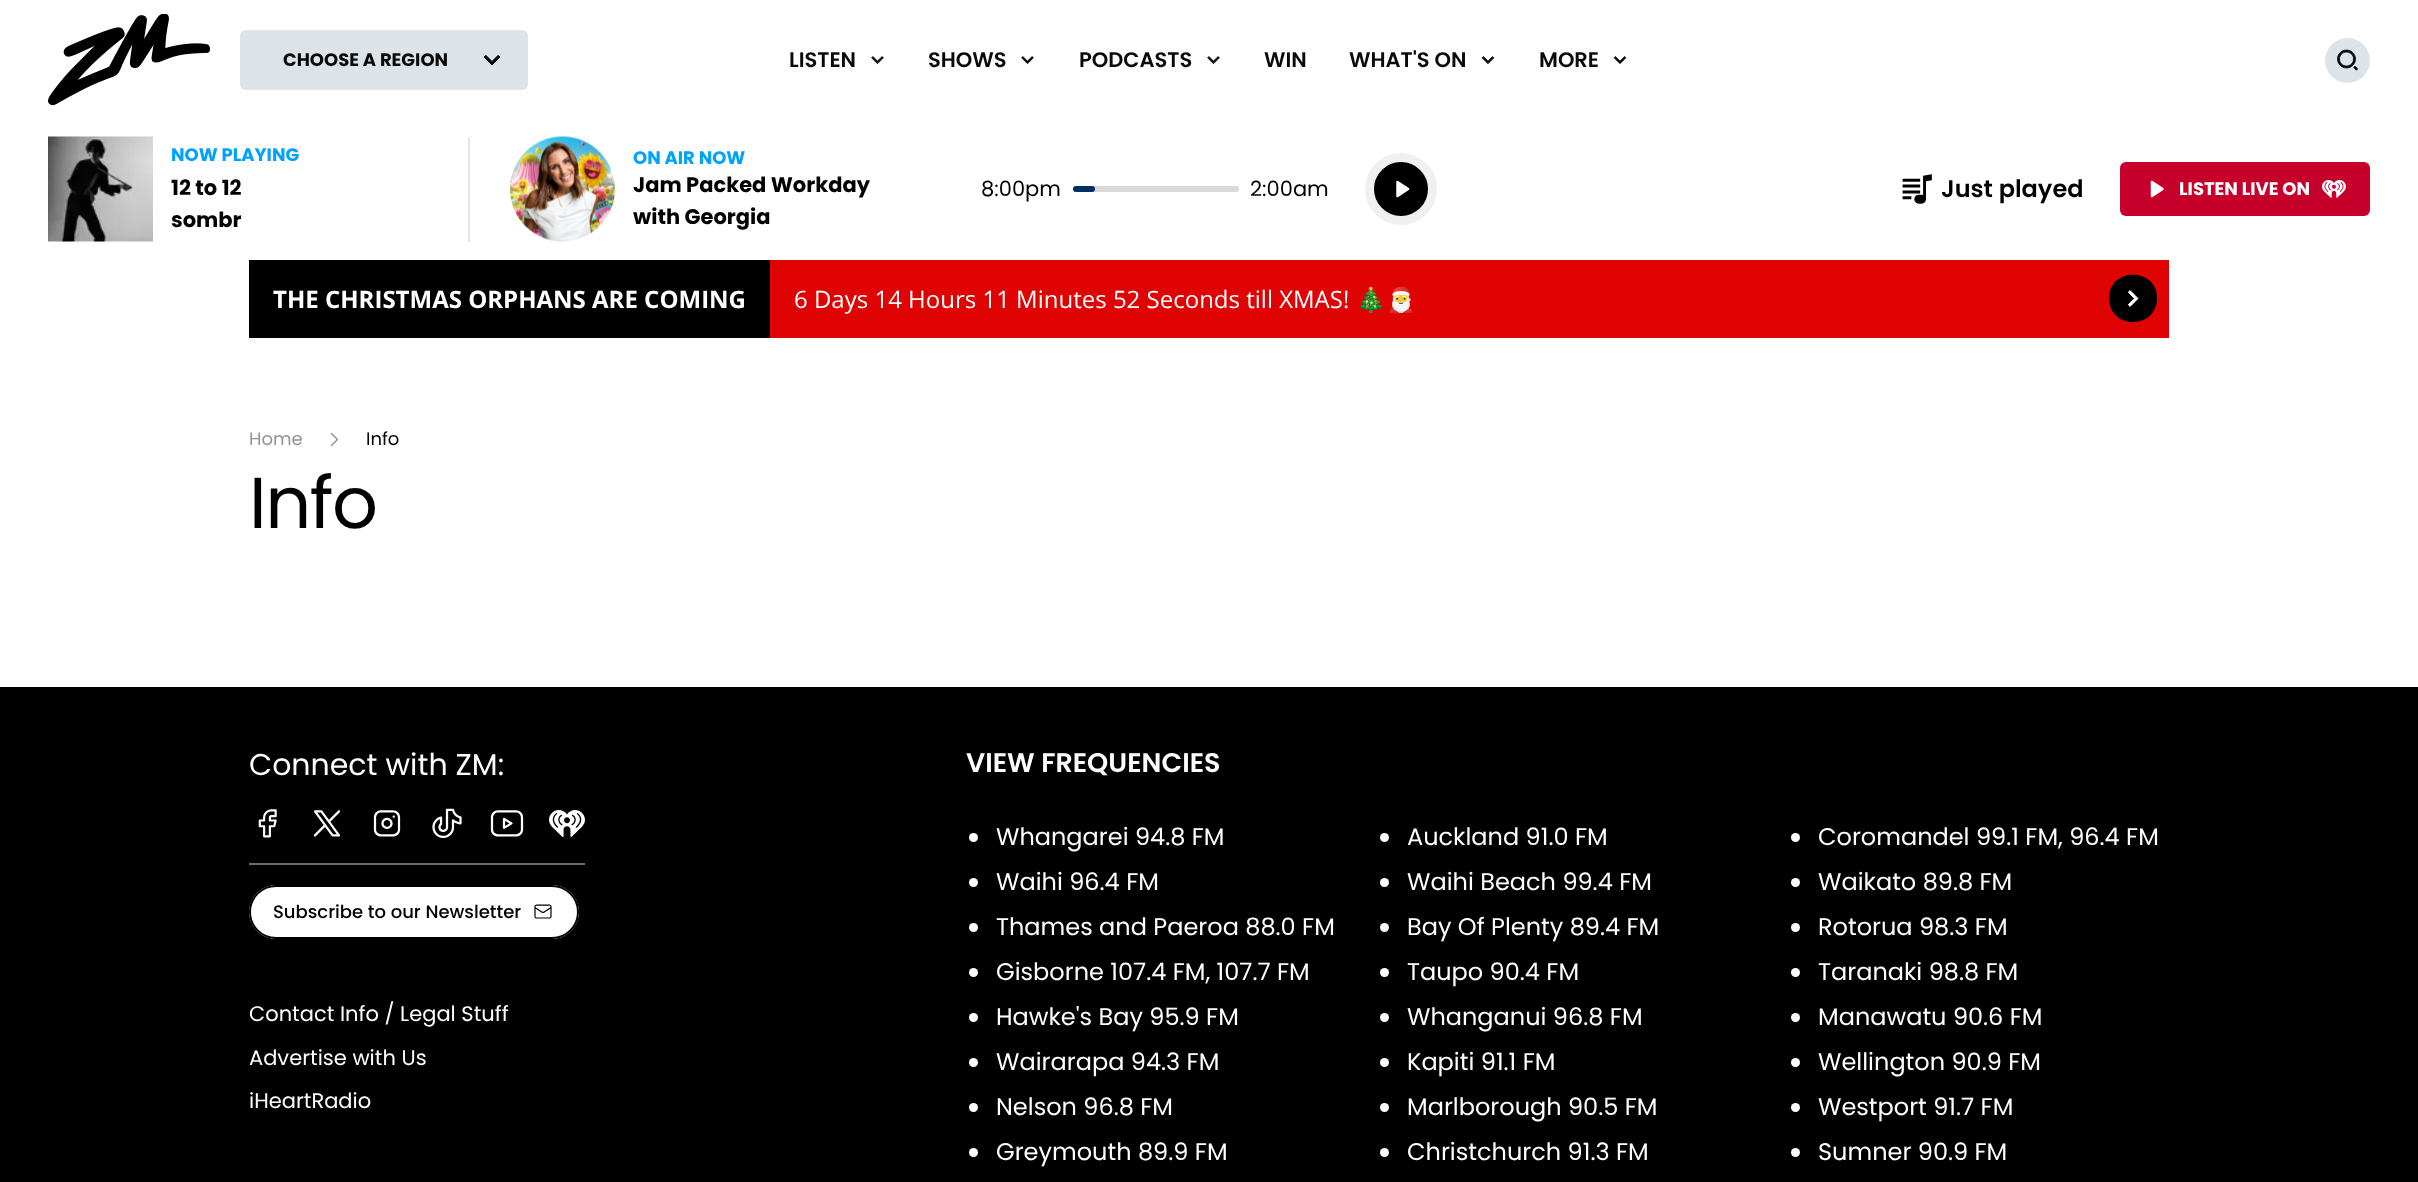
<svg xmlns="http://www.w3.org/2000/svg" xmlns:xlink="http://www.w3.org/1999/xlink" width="2418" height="1182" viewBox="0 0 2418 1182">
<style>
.cls-1{font:bold 18px Poppins;fill:#0a0a0a}
.cls-2{font:600 21px Poppins;fill:#0a0a0a}
.cls-3{font:bold 18px Poppins;fill:#00a2ff}
.cls-4{font:bold 21px Poppins;fill:#000000}
.cls-5{font:21px Poppins;fill:#000000}
.cls-6{font:600 24px Poppins;fill:#000000}
.cls-7{font:bold 18px Poppins;fill:#ffffff}
.cls-8{font:bold 24px Open Sans;fill:#ffffff}
.cls-9{font:24px Open Sans;fill:#ffffff}
.cls-10{font:24px Noto Color Emoji;fill:#ffffff}
.cls-11{font:18px Poppins;fill:#949494}
.cls-12{font:18px Poppins;fill:#000000}
.cls-13{font:72px Poppins;letter-spacing:-1.5px;fill:#000000}
.cls-14{font:30px Poppins;fill:#ffffff}
.cls-15{font:500 18px Poppins;fill:#000000}
.cls-16{font:21px Poppins;fill:#ffffff}
.cls-17{font:600 27px Poppins;fill:#ffffff}
.cls-18{font:24px Poppins;fill:#ffffff}
</style>
<rect width="100%" height="100%" fill="#ffffff"/>
<image xlink:href="image0.png" x="48" y="14" width="162" height="92"/>
<rect fill="#dde4e9" x="240" y="30" width="288" height="60" rx="6"/>
<image xlink:href="image1.png" x="483" y="55" width="18" height="10"/>
<image xlink:href="image2.png" x="871" y="56" width="14" height="9"/>
<image xlink:href="image2.png" x="1021" y="56" width="14" height="9"/>
<image xlink:href="image2.png" x="1207" y="56" width="14" height="9"/>
<image xlink:href="image3.png" x="1481" y="56" width="14" height="8"/>
<image xlink:href="image3.png" x="1613" y="56" width="14" height="8"/>
<circle fill="#dde4e9" cx="2347.5" cy="60.5" r="22.5"/>
<image xlink:href="image4.png" x="2337" y="49" width="22" height="22"/>
<image xlink:href="image5.png" x="48" y="136" width="105" height="106"/>
<rect fill="#e6e5e5" x="468" y="137" width="2" height="105"/>
<image xlink:href="image6.png" x="510" y="136" width="105" height="106"/>
<rect fill="#d9d9d9" x="1073" y="186" width="166" height="6" rx="3"/>
<rect fill="#002f61" x="1073" y="186" width="22" height="6" rx="3"/>
<circle fill="#000000" stroke="#f0f0f0" stroke-width="9" cx="1401" cy="189" r="31.5"/>
<image xlink:href="image7.png" x="1396" y="180" width="14" height="18"/>
<image xlink:href="image8.png" x="1902" y="174" width="30" height="30"/>
<rect fill="#c7002b" x="2120" y="162" width="250" height="54" rx="6"/>
<image xlink:href="image9.png" x="2150" y="180" width="14" height="18"/>
<image xlink:href="image10.png" x="2322" y="180" width="24" height="18"/>
<rect fill="#e00303" x="770" y="260" width="1399" height="78"/>
<rect fill="#000000" x="249" y="260" width="521" height="78"/>
<path fill="#000000" d="M2109 298C2109 267 2157 267 2157 298C2157 330 2109 330 2109 298Z"/>
<image xlink:href="image11.png" x="2127" y="290" width="12" height="17"/>
<image xlink:href="image12.png" x="330" y="432" width="9" height="15"/>
<rect fill="#000000" x="0" y="687" width="2418" height="495"/>
<image xlink:href="image13.png" x="258" y="809" width="19" height="29"/>
<image xlink:href="image14.png" x="313" y="810" width="28" height="27"/>
<image xlink:href="image15.png" x="373" y="810" width="28" height="27"/>
<image xlink:href="image16.png" x="432" y="808" width="30" height="30"/>
<image xlink:href="image17.png" x="490" y="810" width="34" height="27"/>
<image xlink:href="image18.png" x="549" y="810" width="36" height="27"/>
<rect fill="#6b6b6b" x="249" y="863" width="336" height="2"/>
<rect fill="#ffffff" x="249" y="885" width="330" height="54" rx="27"/>
<image xlink:href="image19.png" x="534" y="904" width="18" height="15"/>
<rect fill="none" stroke="#000000" stroke-width="2" x="250" y="886" width="328" height="52" rx="26"/>
<circle fill="#ffffff" cx="973.5" cy="837.5" r="4.5"/>
<circle fill="#ffffff" cx="973.5" cy="882.5" r="4.5"/>
<circle fill="#ffffff" cx="973.5" cy="927.5" r="4.5"/>
<circle fill="#ffffff" cx="973.5" cy="972.5" r="4.5"/>
<circle fill="#ffffff" cx="973.5" cy="1017.5" r="4.5"/>
<circle fill="#ffffff" cx="973.5" cy="1062.5" r="4.5"/>
<circle fill="#ffffff" cx="973.5" cy="1107.5" r="4.5"/>
<circle fill="#ffffff" cx="973.5" cy="1152.5" r="4.5"/>
<circle fill="#ffffff" cx="1384.5" cy="837.5" r="4.5"/>
<circle fill="#ffffff" cx="1384.5" cy="882.5" r="4.5"/>
<circle fill="#ffffff" cx="1384.5" cy="927.5" r="4.5"/>
<circle fill="#ffffff" cx="1384.5" cy="972.5" r="4.5"/>
<circle fill="#ffffff" cx="1384.5" cy="1017.5" r="4.5"/>
<circle fill="#ffffff" cx="1384.5" cy="1062.5" r="4.5"/>
<circle fill="#ffffff" cx="1384.5" cy="1107.5" r="4.5"/>
<circle fill="#ffffff" cx="1384.5" cy="1152.5" r="4.5"/>
<circle fill="#ffffff" cx="1795.5" cy="837.5" r="4.5"/>
<circle fill="#ffffff" cx="1795.5" cy="882.5" r="4.5"/>
<circle fill="#ffffff" cx="1795.5" cy="927.5" r="4.5"/>
<circle fill="#ffffff" cx="1795.5" cy="972.5" r="4.5"/>
<circle fill="#ffffff" cx="1795.5" cy="1017.5" r="4.5"/>
<circle fill="#ffffff" cx="1795.5" cy="1062.5" r="4.5"/>
<circle fill="#ffffff" cx="1795.5" cy="1107.5" r="4.5"/>
<circle fill="#ffffff" cx="1795.5" cy="1152.5" r="4.5"/>
<text class="cls-1" x="283" y="66">CHOOSE A REGION</text>
<text class="cls-2" x="789" y="67">LISTEN</text>
<text class="cls-2" x="928" y="67">SHOWS</text>
<text class="cls-2" x="1079" y="67">PODCASTS</text>
<text class="cls-2" x="1264" y="67">WIN</text>
<text class="cls-2" x="1349" y="67">WHAT'S ON</text>
<text class="cls-2" x="1539" y="67">MORE</text>
<text class="cls-3" x="171" y="161">NOW PLAYING</text>
<text class="cls-4"><tspan x="171" y="195">12 to 12</tspan><tspan x="171" y="227">sombr</tspan></text>
<text class="cls-3" x="633" y="164">ON AIR NOW</text>
<text class="cls-4"><tspan x="633" y="192">Jam Packed Workday</tspan><tspan x="633" y="224">with Georgia</tspan></text>
<text class="cls-5" x="981" y="196">8:00pm</text>
<text class="cls-5" x="1250" y="196">2:00am</text>
<text class="cls-6" x="1941" y="197">Just played</text>
<text class="cls-7" x="2179" y="195">LISTEN LIVE ON</text>
<text class="cls-8" x="273" y="308">THE CHRISTMAS ORPHANS ARE COMING</text>
<text class="cls-9" x="794" y="308">6 Days 14 Hours 11 Minutes 52 Seconds till XMAS!</text>
<text class="cls-10" x="1356" y="308">🎄🎅</text>
<text class="cls-11" x="249" y="445">Home</text>
<text class="cls-12" x="366" y="445">Info</text>
<text class="cls-13" x="249" y="528">Info</text>
<text class="cls-14" x="249" y="775">Connect with ZM:</text>
<text class="cls-15" x="273" y="918">Subscribe to our Newsletter</text>
<text class="cls-16" x="249" y="1021">Contact Info / Legal Stuff</text>
<text class="cls-16" x="249" y="1065">Advertise with Us</text>
<text class="cls-16" x="249" y="1108">iHeartRadio</text>
<text class="cls-17" x="966" y="772">VIEW FREQUENCIES</text>
<text class="cls-18"><tspan x="996" y="845">Whangarei 94.8 FM</tspan><tspan x="996" y="890">Waihi 96.4 FM</tspan><tspan x="996" y="935">Thames and Paeroa 88.0 FM</tspan><tspan x="996" y="980">Gisborne 107.4 FM, 107.7 FM</tspan><tspan x="996" y="1025">Hawke's Bay 95.9 FM</tspan><tspan x="996" y="1070">Wairarapa 94.3 FM</tspan><tspan x="996" y="1115">Nelson 96.8 FM</tspan><tspan x="996" y="1160">Greymouth 89.9 FM</tspan></text>
<text class="cls-18"><tspan x="1407" y="845">Auckland 91.0 FM</tspan><tspan x="1407" y="890">Waihi Beach 99.4 FM</tspan><tspan x="1407" y="935">Bay Of Plenty 89.4 FM</tspan><tspan x="1407" y="980">Taupo 90.4 FM</tspan><tspan x="1407" y="1025">Whanganui 96.8 FM</tspan><tspan x="1407" y="1070">Kapiti 91.1 FM</tspan><tspan x="1407" y="1115">Marlborough 90.5 FM</tspan><tspan x="1407" y="1160">Christchurch 91.3 FM</tspan></text>
<text class="cls-18"><tspan x="1818" y="845">Coromandel 99.1 FM, 96.4 FM</tspan><tspan x="1818" y="890">Waikato 89.8 FM</tspan><tspan x="1818" y="935">Rotorua 98.3 FM</tspan><tspan x="1818" y="980">Taranaki 98.8 FM</tspan><tspan x="1818" y="1025">Manawatu 90.6 FM</tspan><tspan x="1818" y="1070">Wellington 90.9 FM</tspan><tspan x="1818" y="1115">Westport 91.7 FM</tspan><tspan x="1818" y="1160">Sumner 90.9 FM</tspan></text>
</svg>
